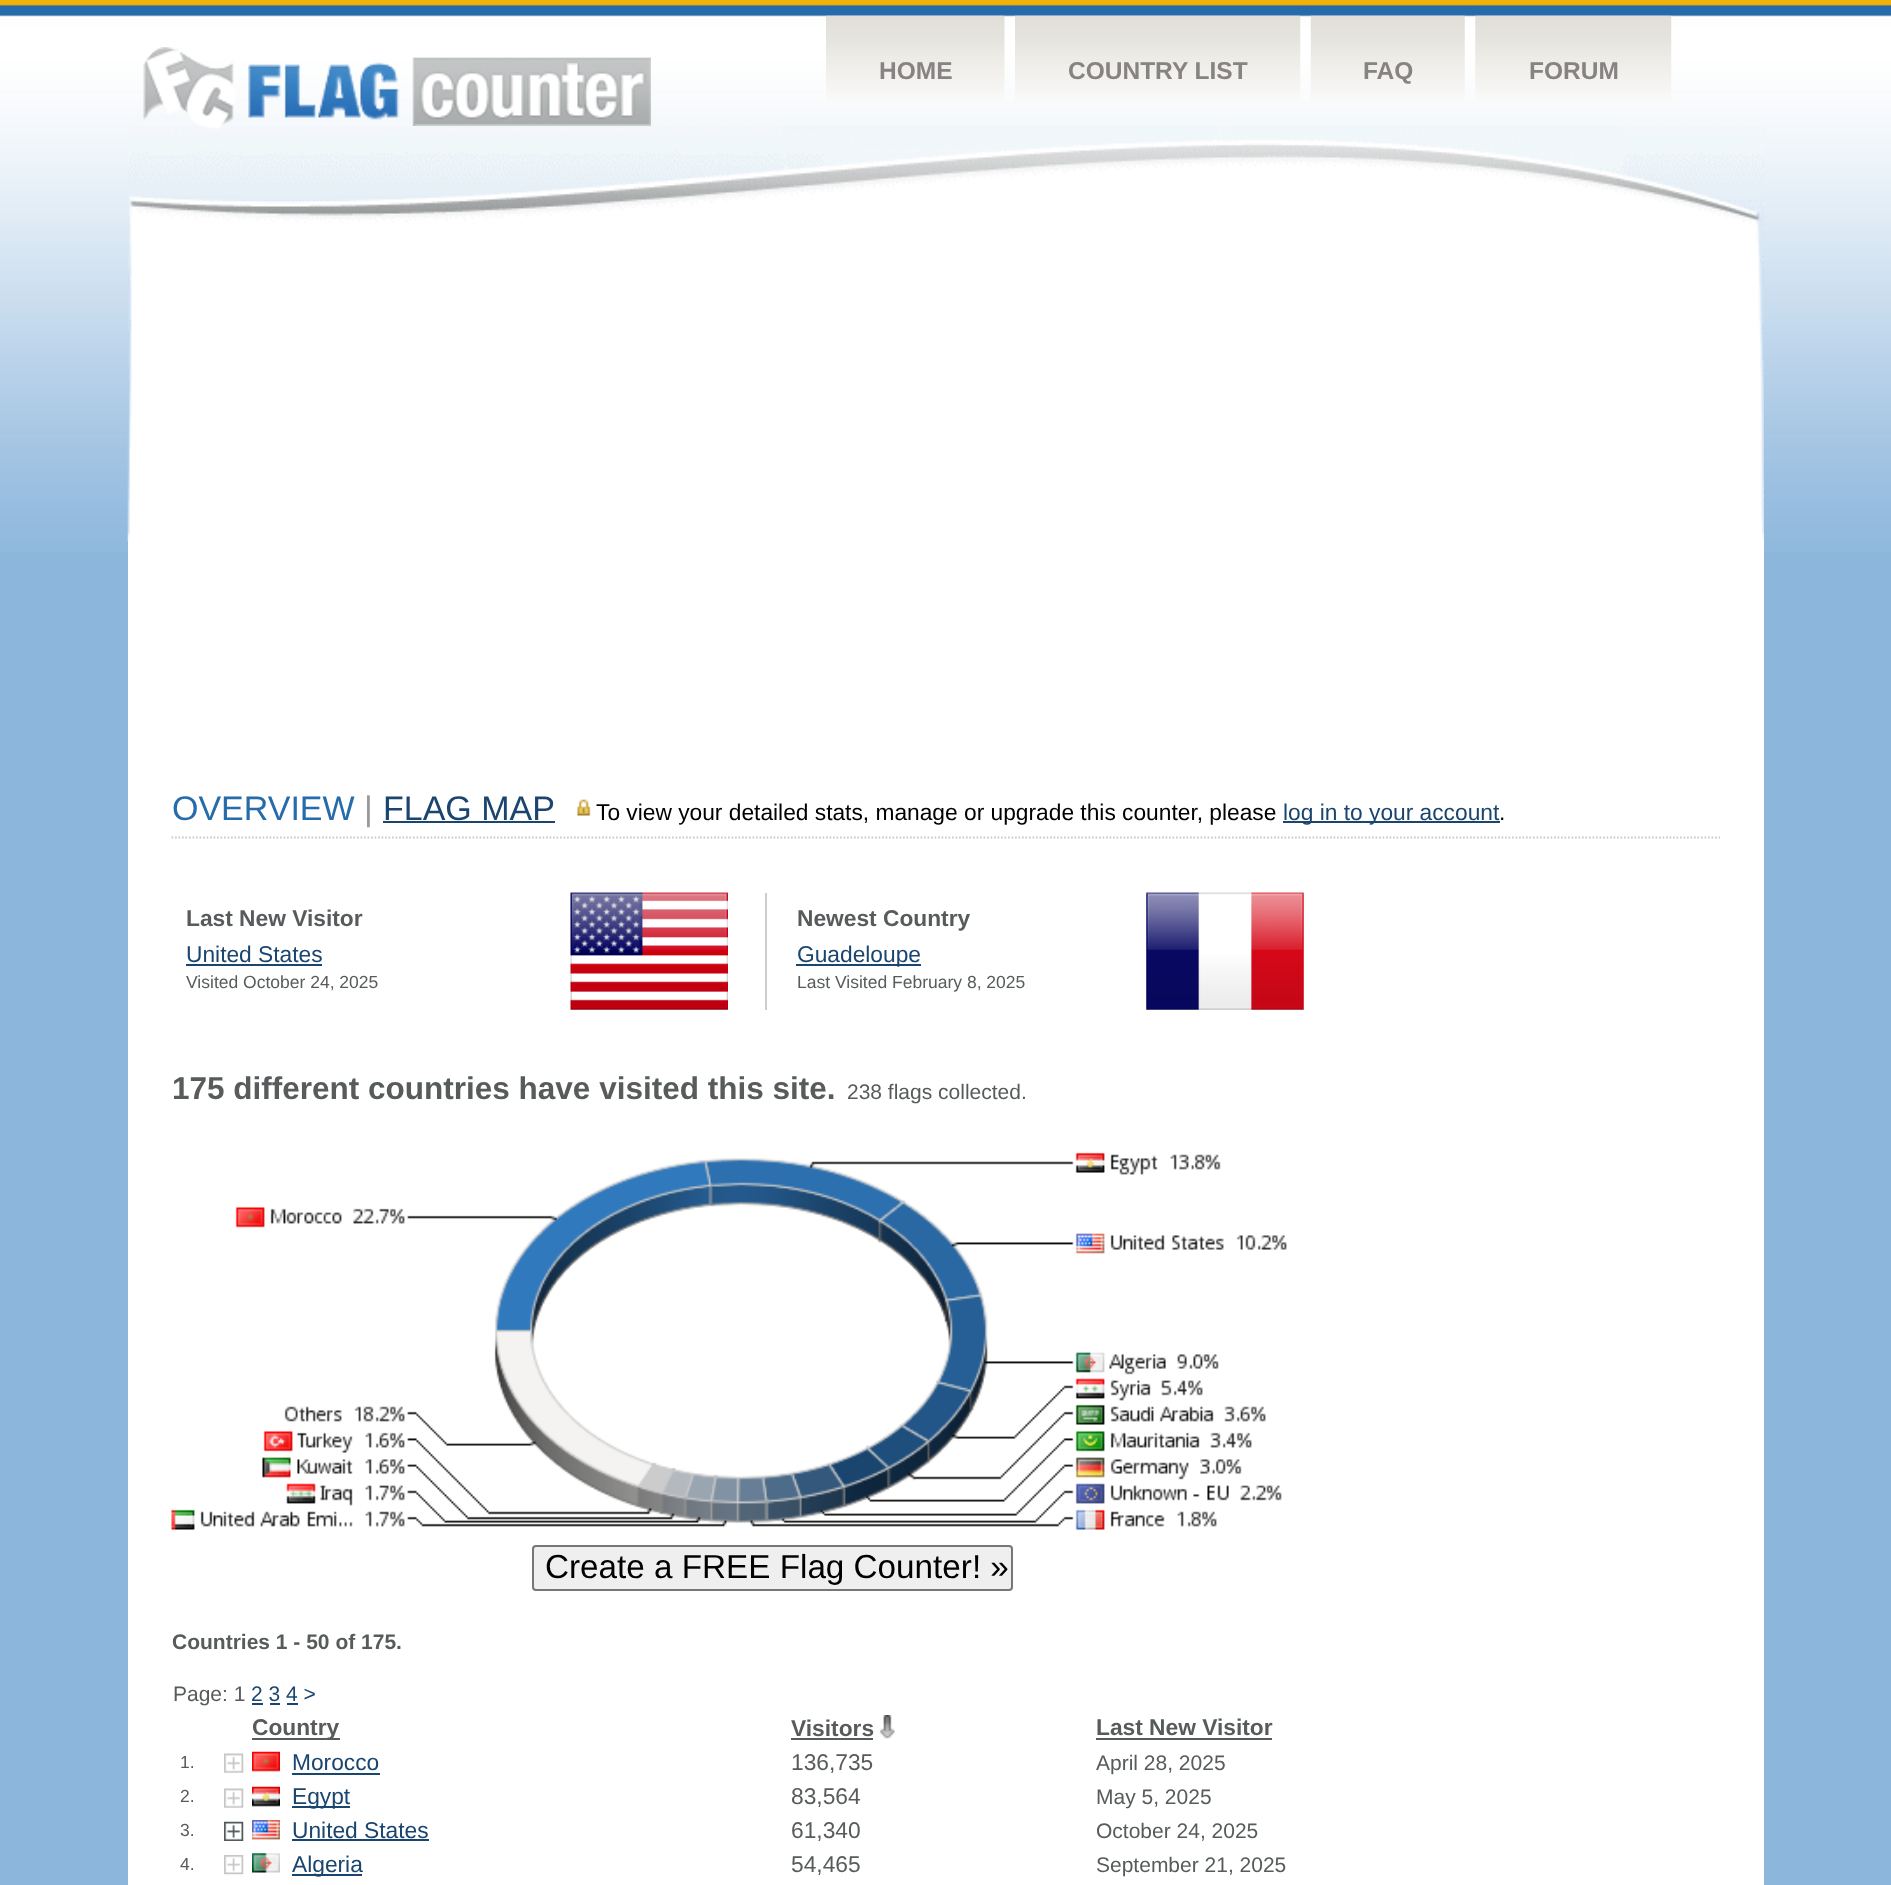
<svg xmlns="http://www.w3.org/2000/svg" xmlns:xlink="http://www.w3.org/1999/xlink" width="1891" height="1885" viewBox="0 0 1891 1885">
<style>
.cls-1{font:bold 24.5px Liberation Sans;fill:#868382}
.cls-2{font:34px Liberation Sans;fill:#266baa}
.cls-3{font:34px Liberation Sans;fill:#999999}
.cls-4{font:34px Liberation Sans;fill:#1a456e}
.cls-5{font:22.75px Liberation Sans;fill:#000000}
.cls-6{font:22.75px Liberation Sans;fill:#1a456e}
.cls-7{font:bold 22.75px Liberation Sans;fill:#575b5c}
.cls-8{font:17.5px Liberation Sans;fill:#575b5c}
.cls-9{font:bold 31.5px Liberation Sans;fill:#575b5c}
.cls-10{font:21px Liberation Sans;fill:#575b5c}
.cls-11{font:33.25px Liberation Sans;fill:#000000}
.cls-12{font:bold 21px Liberation Sans;fill:#575b5c}
.cls-13{font:21px Liberation Sans;fill:#1a456e}
.cls-14{font:22.75px Liberation Sans;fill:#575b5c}
</style>
<rect width="100%" height="100%" fill="#8cb6dc"/>
<image xlink:href="image0.png" x="0" y="0" width="1891" height="552"/>
<image xlink:href="image1.png" x="143" y="47" width="508" height="79"/>
<image xlink:href="image2.png" x="826" y="15" width="179" height="86"/>
<image xlink:href="image3.png" x="1015" y="15" width="286" height="86"/>
<image xlink:href="image4.png" x="1310" y="15" width="155" height="86"/>
<image xlink:href="image5.png" x="1475" y="15" width="197" height="86"/>
<rect fill="#ffffff" x="128" y="540" width="1636" height="1345"/>
<image xlink:href="image6.png" x="127" y="126" width="1637" height="415"/>
<path fill="none" stroke="#cccccc" stroke-width="1.8" stroke-dasharray="1.75 1.75" d="M171.5 837.5H1720"/>
<rect fill="#1a456e" x="383" y="821" width="172" height="2"/>
<image xlink:href="image7.png" x="577" y="799" width="14" height="17"/>
<rect fill="#1a456e" x="1283" y="821" width="217" height="2"/>
<rect fill="#1a456e" x="186" y="964" width="136" height="2"/>
<image xlink:href="image8.png" x="570" y="892" width="158" height="118"/>
<rect fill="#cccccc" x="765" y="893" width="2" height="117"/>
<rect fill="#1a456e" x="796" y="964" width="125" height="2"/>
<image xlink:href="image9.png" x="1146" y="892" width="158" height="118"/>
<image xlink:href="image10.png" x="171" y="1152" width="1116" height="378"/>
<rect fill="#efefef" stroke="#767676" stroke-width="2" x="533" y="1546" width="479" height="44" rx="3"/>
<rect fill="#1a456e" x="252" y="1703" width="11" height="2"/>
<rect fill="#1a456e" x="270" y="1703" width="10" height="2"/>
<rect fill="#1a456e" x="287" y="1703" width="11" height="2"/>
<rect fill="#575b5c" x="252" y="1738" width="88" height="2"/>
<rect fill="#575b5c" x="791" y="1738" width="82" height="2"/>
<image xlink:href="image11.png" x="879" y="1715" width="16" height="24"/>
<rect fill="#575b5c" x="1096" y="1738" width="176" height="2"/>
<image xlink:href="image12.png" x="224" y="1753" width="20" height="20"/>
<image xlink:href="image13.png" x="252" y="1751" width="28" height="21"/>
<rect fill="#1a456e" x="292" y="1773" width="88" height="2"/>
<image xlink:href="image12.png" x="224" y="1788" width="20" height="20"/>
<image xlink:href="image14.png" x="252" y="1786" width="28" height="21"/>
<rect fill="#1a456e" x="292" y="1806" width="58" height="2"/>
<image xlink:href="image15.png" x="224" y="1821" width="20" height="20"/>
<image xlink:href="image16.png" x="252" y="1820" width="28" height="20"/>
<rect fill="#1a456e" x="292" y="1839" width="137" height="2"/>
<image xlink:href="image17.png" x="224" y="1855" width="20" height="20"/>
<image xlink:href="image18.png" x="252" y="1853" width="28" height="20"/>
<rect fill="#1a456e" x="292" y="1874" width="70" height="2"/>
<text class="cls-1" x="879" y="79">HOME</text>
<text class="cls-1" x="1068" y="79">COUNTRY LIST</text>
<text class="cls-1" x="1363" y="79">FAQ</text>
<text class="cls-1" x="1529" y="79">FORUM</text>
<text class="cls-2" x="172" y="820">OVERVIEW</text>
<text class="cls-3" x="364" y="820">|</text>
<text class="cls-4" x="383" y="820">FLAG MAP</text>
<text class="cls-5" x="596" y="820">To view your detailed stats, manage or upgrade this counter, please</text>
<text class="cls-6" x="1283" y="820">log in to your account</text>
<text class="cls-5" x="1499" y="820">.</text>
<text class="cls-7" x="186" y="926">Last New Visitor</text>
<text class="cls-6" x="186" y="962">United States</text>
<text class="cls-8" x="186" y="988">Visited October 24, 2025</text>
<text class="cls-7" x="797" y="926">Newest Country</text>
<text class="cls-6" x="797" y="962">Guadeloupe</text>
<text class="cls-8" x="797" y="988">Last Visited February 8, 2025</text>
<text class="cls-9" x="172" y="1099">175 different countries have visited this site.</text>
<text class="cls-10" x="847" y="1099">238 flags collected.</text>
<text class="cls-11" x="545" y="1578">Create a FREE Flag Counter! »</text>
<text class="cls-12" x="172" y="1649">Countries 1 - 50 of 175.</text>
<text class="cls-10" x="173" y="1701">Page: 1</text>
<text class="cls-13" x="251" y="1701">2 3 4 &gt;</text>
<text class="cls-7" x="252" y="1735">Country</text>
<text class="cls-7" x="791" y="1736">Visitors</text>
<text class="cls-7" x="1096" y="1735">Last New Visitor</text>
<text class="cls-8" x="180" y="1768">1.</text>
<text class="cls-6" x="292" y="1770">Morocco</text>
<text class="cls-14" x="791" y="1770">136,735</text>
<text class="cls-10" x="1096" y="1770">April 28, 2025</text>
<text class="cls-8" x="180" y="1802">2.</text>
<text class="cls-6" x="292" y="1804">Egypt</text>
<text class="cls-14" x="791" y="1804">83,564</text>
<text class="cls-10" x="1096" y="1804">May 5, 2025</text>
<text class="cls-8" x="180" y="1836">3.</text>
<text class="cls-6" x="292" y="1838">United States</text>
<text class="cls-14" x="791" y="1838">61,340</text>
<text class="cls-10" x="1096" y="1838">October 24, 2025</text>
<text class="cls-8" x="180" y="1870">4.</text>
<text class="cls-6" x="292" y="1872">Algeria</text>
<text class="cls-14" x="791" y="1872">54,465</text>
<text class="cls-10" x="1096" y="1872">September 21, 2025</text>
</svg>
